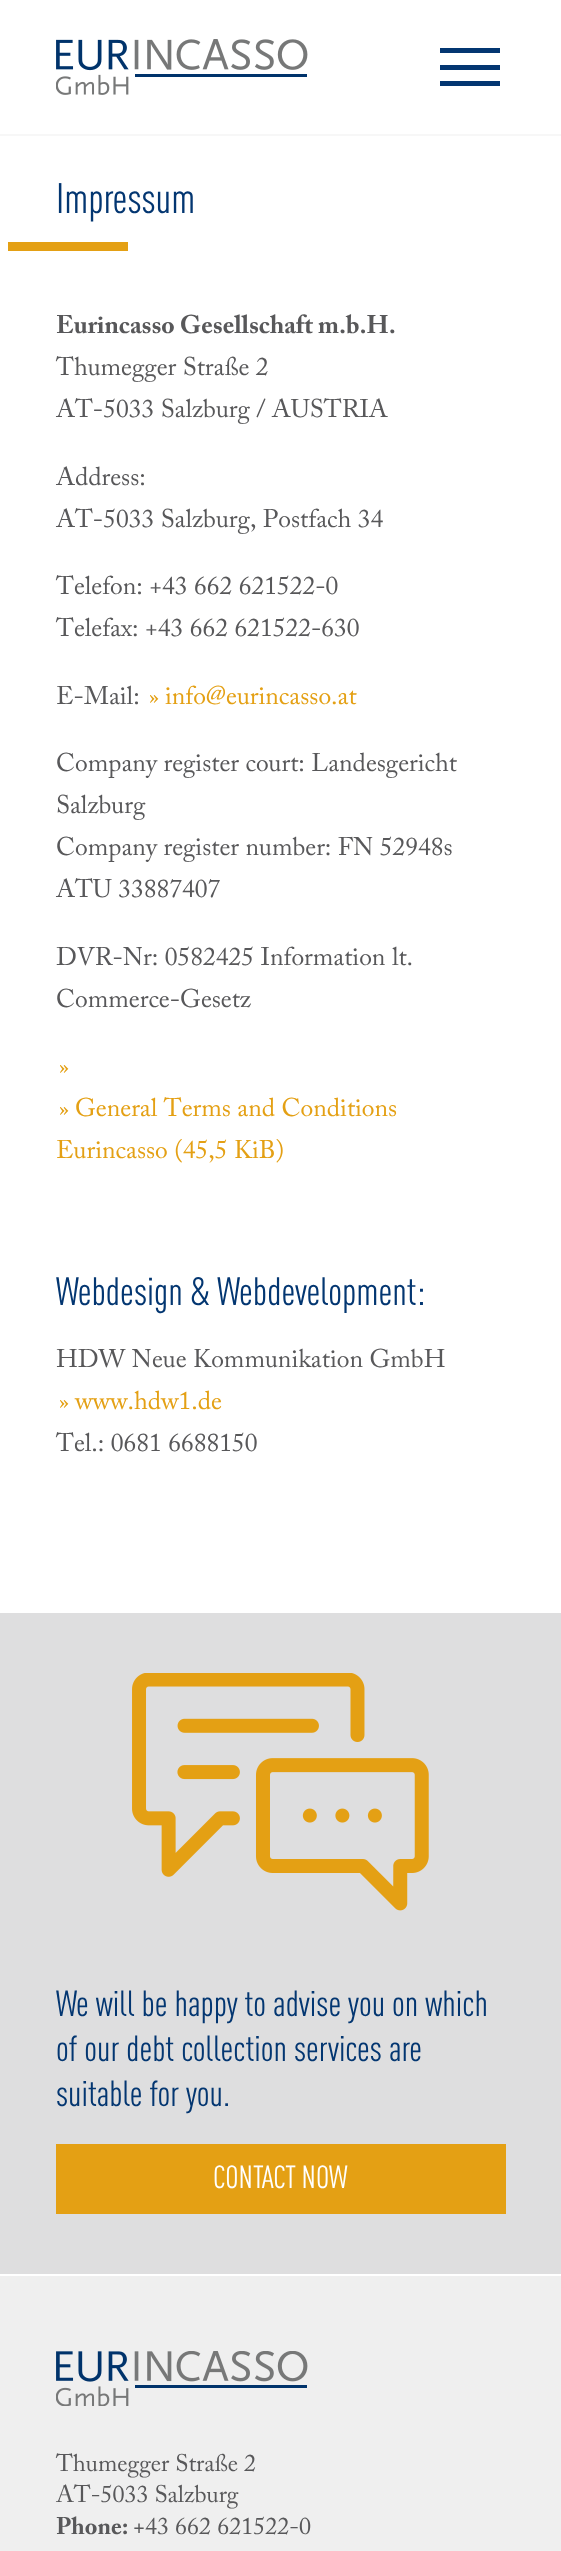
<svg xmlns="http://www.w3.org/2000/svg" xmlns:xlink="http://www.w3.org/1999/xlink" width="561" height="2551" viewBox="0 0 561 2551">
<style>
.cls-1{font:42px 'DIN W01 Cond';fill:#033671}
.cls-2{font:bold 25.5px 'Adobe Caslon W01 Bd';fill:#58585a}
.cls-3{font:25.5px 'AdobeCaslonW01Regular';fill:#58585a}
.cls-4{font:24px 'AdobeCaslonW01Regular';fill:#e4a014}
.cls-5{font:25.5px 'AdobeCaslonW01Regular';fill:#e4a014}
.cls-6{font:39px 'DIN W01 Cond';fill:#033671}
.cls-7{font:36px 'DIN W01 Cond';fill:#033671}
.cls-8{font:31.5px 'DIN W01 Cond';fill:#ffffff}
.cls-9{font:24px 'AdobeCaslonW01Regular';fill:#58585a}
.cls-10{font:bold 24px 'Adobe Caslon W01 Bd';fill:#58585a}
</style>
<rect width="100%" height="100%" fill="#ffffff"/>
<image xlink:href="image0.png" x="56" y="39" width="252" height="56"/>
<rect fill="#033671" x="440" y="48" width="60" height="5"/>
<rect fill="#033671" x="440" y="65" width="60" height="5"/>
<rect fill="#033671" x="440" y="81" width="60" height="5"/>
<rect fill="#f7f7f7" x="0" y="134" width="561" height="2"/>
<rect fill="#e4a014" x="8" y="242" width="120" height="9"/>
<rect fill="#dededf" x="0" y="1613" width="561" height="661"/>
<image xlink:href="image1.png" x="132" y="1673" width="297" height="238"/>
<rect fill="#e4a014" x="56" y="2144" width="450" height="70"/>
<rect fill="#efefef" x="0" y="2276" width="561" height="275"/>
<image xlink:href="image2.png" x="56" y="2351" width="252" height="55"/>
<text class="cls-1" x="56" y="213">Impressum</text>
<text class="cls-2" x="56" y="333">Eurincasso Gesellschaft m.b.H.</text>
<text class="cls-3"><tspan x="56" y="375">Thumegger Straße 2</tspan><tspan x="56" y="417">AT-5033 Salzburg / AUSTRIA</tspan></text>
<text class="cls-3"><tspan x="56" y="485">Address:</tspan><tspan x="56" y="527">AT-5033 Salzburg, Postfach 34</tspan></text>
<text class="cls-3"><tspan x="56" y="594">Telefon: +43 662 621522-0</tspan><tspan x="56" y="636">Telefax: +43 662 621522-630</tspan></text>
<text class="cls-3" x="56" y="704">E-Mail:</text>
<text class="cls-4" x="149" y="704">»</text>
<text class="cls-5" x="165" y="704">info@eurincasso.at</text>
<text class="cls-3"><tspan x="56" y="771">Company register court: Landesgericht</tspan><tspan x="56" y="813">Salzburg</tspan><tspan x="56" y="855">Company register number: FN 52948s</tspan><tspan x="56" y="897">ATU 33887407</tspan></text>
<text class="cls-3"><tspan x="56" y="965">DVR-Nr: 0582425 Information lt.</tspan><tspan x="56" y="1007">Commerce-Gesetz</tspan></text>
<text class="cls-4"><tspan x="59" y="1074">»</tspan><tspan x="59" y="1116">»</tspan></text>
<text class="cls-5" x="75" y="1116">General Terms and Conditions</text>
<text class="cls-5" x="56" y="1158">Eurincasso (45,5 KiB)</text>
<text class="cls-6" x="56" y="1305">Webdesign &amp; Webdevelopment:</text>
<text class="cls-3" x="56" y="1367">HDW Neue Kommunikation GmbH</text>
<text class="cls-4" x="59" y="1409">»</text>
<text class="cls-5" x="75" y="1409">www.hdw1.de</text>
<text class="cls-3" x="56" y="1451">Tel.: 0681 6688150</text>
<text class="cls-7"><tspan x="56" y="2016">We will be happy to advise you on which</tspan><tspan x="56" y="2061">of our debt collection services are</tspan><tspan x="56" y="2106">suitable for you.</tspan></text>
<text class="cls-8" x="213" y="2188">CONTACT NOW</text>
<text class="cls-9"><tspan x="56" y="2471">Thumegger Straße 2</tspan><tspan x="56" y="2502">AT-5033 Salzburg</tspan></text>
<text class="cls-10" x="56" y="2534">Phone:</text>
<text class="cls-9" x="133" y="2534">+43 662 621522-0</text>
</svg>
